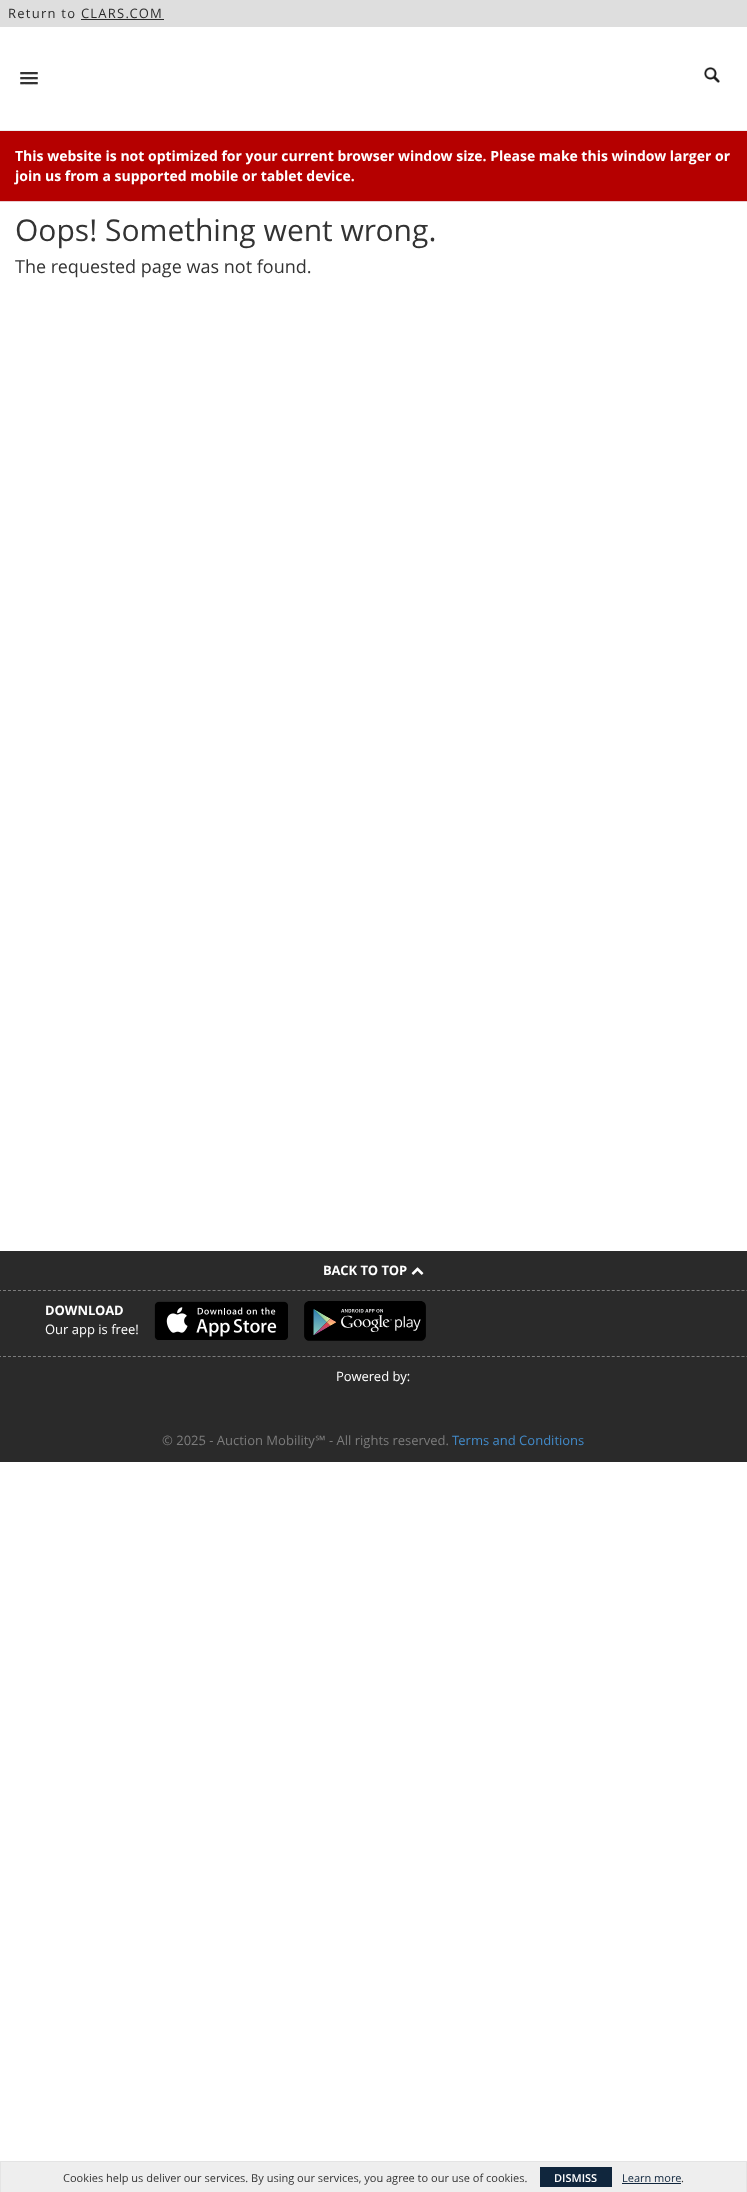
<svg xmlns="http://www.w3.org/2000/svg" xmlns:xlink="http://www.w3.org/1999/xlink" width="747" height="2192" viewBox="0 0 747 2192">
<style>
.cls-1{font:13px Open Sans;letter-spacing:1.25px;fill:#2b2b2b}
.cls-2{font:bold 14px Open Sans;fill:#ffffff}
.cls-3{font:30px Open Sans;fill:#333333}
.cls-4{font:18px Open Sans;fill:#333333}
.cls-5{font:bold 13px Open Sans;fill:#ffffff}
.cls-6{font:13px Open Sans;fill:#ffffff}
.cls-7{font:13px Open Sans;fill:#7c7c7c}
.cls-8{font:13px Noto Sans;fill:#7c7c7c}
.cls-9{font:13px Open Sans;fill:#428bca}
.cls-10{font:11px Open Sans;fill:#333333}
.cls-11{font:600 11px Open Sans;fill:#ffffff}
.cls-12{font:11px Open Sans;fill:#10263d}
</style>
<rect width="100%" height="100%" fill="#ffffff"/>
<rect fill="#dedede" x="0" y="0" width="747" height="27"/>
<rect fill="#2b2b2b" x="81" y="19" width="83" height="1"/>
<path fill="#bfbfbf" d="M20 73.5C19 75.5 23.5 75 23.5 75H34.5C34.5 75 39 75.5 38 73.5C37 74.5 30.5 74 29 74C27.5 74 21 74.5 20 73.5Z"/>
<rect fill="#333333" x="20" y="72" width="18" height="2" rx="1"/>
<path fill="#bfbfbf" d="M20 78.5C19 80.5 23.5 80 23.5 80H34.5C34.5 80 39 80.5 38 78.5C37 79.5 30.5 79 29 79C27.5 79 21 79.5 20 78.5Z"/>
<rect fill="#333333" x="20" y="77" width="18" height="2" rx="1"/>
<path fill="#bfbfbf" d="M20 83.5C19 85.5 23.5 85 23.5 85H34.5C34.5 85 39 85.5 38 83.5C37 84.5 30.5 84 29 84C27.5 84 21 84.5 20 83.5Z"/>
<rect fill="#333333" x="20" y="82" width="18" height="2" rx="1"/>
<image xlink:href="image0.png" x="704" y="67" width="16" height="16"/>
<rect fill="#b50000" x="0" y="131" width="747" height="70"/>
<rect fill="#ebccd1" x="0" y="201" width="747" height="1"/>
<rect fill="#eeeeee" x="0" y="130" width="747" height="1"/>
<rect fill="#2a2a2a" x="0" y="1251" width="747" height="211"/>
<path fill="none" stroke="#7c7c7c" stroke-dasharray="3 1.99" d="M-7 1290.5H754"/>
<image xlink:href="image1.png" x="411" y="1267" width="13" height="8"/>
<path fill="none" stroke="#7c7c7c" stroke-dasharray="3 1.99" d="M-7 1356.5H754"/>
<image xlink:href="image2.png" x="154" y="1301" width="134" height="39"/>
<image xlink:href="image3.png" x="304" y="1301" width="122" height="40"/>
<rect fill="#eeeeee" x="1" y="2162" width="745" height="30"/>
<rect fill="#e4e4e4" x="0" y="2161" width="747" height="1"/>
<rect fill="#e4e4e4" x="746" y="2161" width="1" height="31"/>
<rect fill="#e4e4e4" x="0" y="2161" width="1" height="31"/>
<rect fill="#10263d" x="540" y="2167" width="72" height="20"/>
<rect fill="#10263d" x="622" y="2183" width="59" height="1"/>
<text class="cls-1" x="8" y="18">Return to CLARS.COM</text>
<text class="cls-2"><tspan x="15" y="161">This website is not optimized for your current browser window size. Please make this window larger or</tspan><tspan x="15" y="181">join us from a supported mobile or tablet device.</tspan></text>
<text class="cls-3" x="15" y="241">Oops! Something went wrong.</text>
<text class="cls-4" x="15" y="273">The requested page was not found.</text>
<text class="cls-5" x="323" y="1275">BACK TO TOP</text>
<text class="cls-5" x="45" y="1315">DOWNLOAD</text>
<text class="cls-6" x="45" y="1334">Our app is free!</text>
<text class="cls-6" x="336" y="1381">Powered by:</text>
<text class="cls-7" x="162" y="1445">© 2025 - Auction Mobility</text>
<text class="cls-8" x="315" y="1445">℠</text>
<text class="cls-7" x="329" y="1445">- All rights reserved.</text>
<text class="cls-9" x="452" y="1445">Terms and Conditions</text>
<text class="cls-10" x="63" y="2182">Cookies help us deliver our services. By using our services, you agree to our use of cookies.</text>
<text class="cls-11" x="554" y="2182">DISMISS</text>
<text class="cls-12" x="622" y="2182">Learn more</text>
<text class="cls-10" x="681" y="2182">.</text>
</svg>
